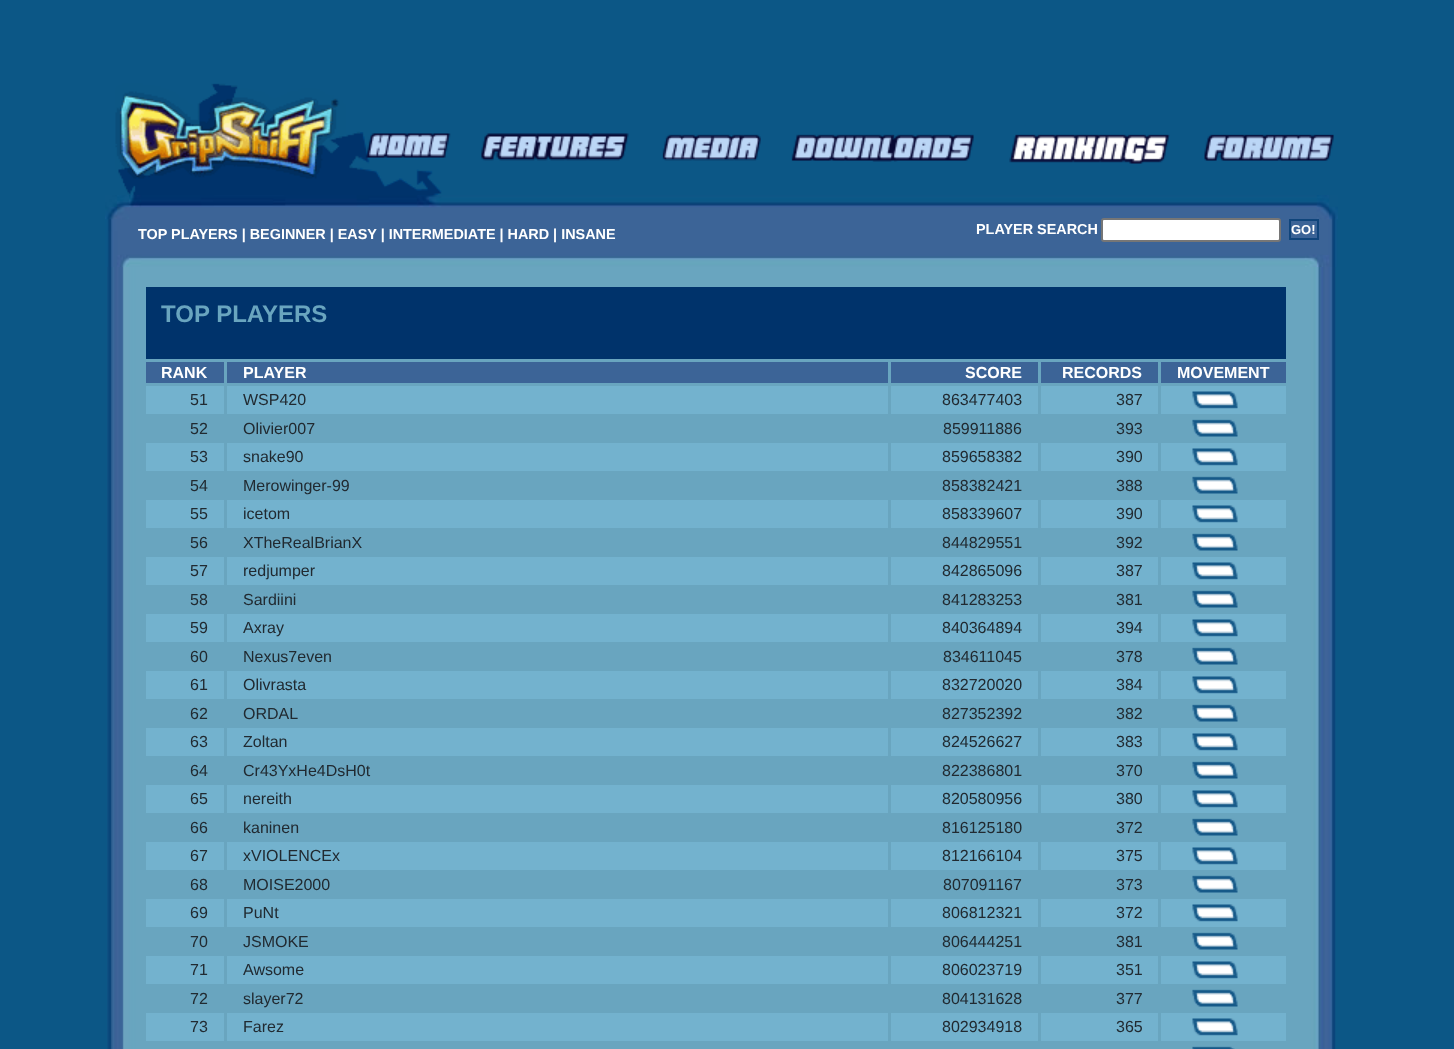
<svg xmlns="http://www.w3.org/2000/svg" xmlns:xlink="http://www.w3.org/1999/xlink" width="1454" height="1049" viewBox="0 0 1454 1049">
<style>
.cls-1{font:bold 14.4px Liberation Sans;fill:#ffffff}
.cls-2{font:bold 13px Liberation Sans;fill:#ffffff}
.cls-3{font:bold 24px Liberation Sans;fill:#69a5bf}
.cls-4{font:bold 16px Liberation Sans;fill:#ffffff}
.cls-5{font:16px Liberation Sans;fill:#212a31}
</style>
<rect width="100%" height="100%" fill="#0c5786"/>
<image xlink:href="image0.png" x="115" y="83" width="245" height="112"/>
<image xlink:href="image1.png" x="360" y="132" width="91" height="63"/>
<image xlink:href="image2.png" x="481" y="133" width="148" height="28"/>
<image xlink:href="image3.png" x="662" y="134" width="99" height="27"/>
<image xlink:href="image4.png" x="791" y="134" width="183" height="28"/>
<image xlink:href="image5.png" x="1009" y="134" width="161" height="30"/>
<image xlink:href="image6.png" x="1204" y="134" width="130" height="27"/>
<image xlink:href="image7.png" x="107" y="267" width="1229" height="782"/>
<image xlink:href="image8.png" x="105" y="195" width="1233" height="72"/>
<rect fill="#ffffff" stroke="#767676" stroke-width="2" x="1102" y="219" width="178" height="22" rx="2"/>
<rect fill="none" stroke="#10457b" stroke-width="2" x="1290" y="220" width="28" height="19"/>
<rect fill="#00336b" x="146" y="287" width="1140" height="72"/>
<rect fill="#3c6497" x="146" y="362" width="1140" height="21"/>
<rect fill="#73b2ce" x="146" y="386" width="1140" height="28"/>
<image xlink:href="image9.png" x="1192" y="391" width="46" height="18"/>
<rect fill="#69a5bf" x="224" y="360" width="3" height="56"/>
<rect fill="#69a5bf" x="888" y="360" width="3" height="56"/>
<rect fill="#69a5bf" x="1038" y="360" width="3" height="56"/>
<rect fill="#69a5bf" x="1158" y="360" width="3" height="56"/>
<image xlink:href="image10.png" x="1192" y="419" width="46" height="18"/>
<rect fill="#73b2ce" x="146" y="443" width="1140" height="28"/>
<image xlink:href="image9.png" x="1192" y="448" width="46" height="18"/>
<rect fill="#69a5bf" x="224" y="441" width="3" height="32"/>
<rect fill="#69a5bf" x="888" y="441" width="3" height="32"/>
<rect fill="#69a5bf" x="1038" y="441" width="3" height="32"/>
<rect fill="#69a5bf" x="1158" y="441" width="3" height="32"/>
<image xlink:href="image10.png" x="1192" y="476" width="46" height="18"/>
<rect fill="#73b2ce" x="146" y="500" width="1140" height="28"/>
<image xlink:href="image9.png" x="1192" y="505" width="46" height="18"/>
<rect fill="#69a5bf" x="224" y="498" width="3" height="32"/>
<rect fill="#69a5bf" x="888" y="498" width="3" height="32"/>
<rect fill="#69a5bf" x="1038" y="498" width="3" height="32"/>
<rect fill="#69a5bf" x="1158" y="498" width="3" height="32"/>
<image xlink:href="image10.png" x="1192" y="533" width="46" height="18"/>
<rect fill="#73b2ce" x="146" y="557" width="1140" height="28"/>
<image xlink:href="image9.png" x="1192" y="562" width="46" height="18"/>
<rect fill="#69a5bf" x="224" y="555" width="3" height="32"/>
<rect fill="#69a5bf" x="888" y="555" width="3" height="32"/>
<rect fill="#69a5bf" x="1038" y="555" width="3" height="32"/>
<rect fill="#69a5bf" x="1158" y="555" width="3" height="32"/>
<image xlink:href="image10.png" x="1192" y="590" width="46" height="18"/>
<rect fill="#73b2ce" x="146" y="614" width="1140" height="28"/>
<image xlink:href="image9.png" x="1192" y="619" width="46" height="18"/>
<rect fill="#69a5bf" x="224" y="612" width="3" height="32"/>
<rect fill="#69a5bf" x="888" y="612" width="3" height="32"/>
<rect fill="#69a5bf" x="1038" y="612" width="3" height="32"/>
<rect fill="#69a5bf" x="1158" y="612" width="3" height="32"/>
<image xlink:href="image10.png" x="1192" y="647" width="46" height="18"/>
<rect fill="#73b2ce" x="146" y="671" width="1140" height="28"/>
<image xlink:href="image9.png" x="1192" y="676" width="46" height="18"/>
<rect fill="#69a5bf" x="224" y="669" width="3" height="32"/>
<rect fill="#69a5bf" x="888" y="669" width="3" height="32"/>
<rect fill="#69a5bf" x="1038" y="669" width="3" height="32"/>
<rect fill="#69a5bf" x="1158" y="669" width="3" height="32"/>
<image xlink:href="image10.png" x="1192" y="704" width="46" height="18"/>
<rect fill="#73b2ce" x="146" y="728" width="1140" height="28"/>
<image xlink:href="image9.png" x="1192" y="733" width="46" height="18"/>
<rect fill="#69a5bf" x="224" y="726" width="3" height="32"/>
<rect fill="#69a5bf" x="888" y="726" width="3" height="32"/>
<rect fill="#69a5bf" x="1038" y="726" width="3" height="32"/>
<rect fill="#69a5bf" x="1158" y="726" width="3" height="32"/>
<image xlink:href="image10.png" x="1192" y="761" width="46" height="18"/>
<rect fill="#73b2ce" x="146" y="785" width="1140" height="28"/>
<image xlink:href="image9.png" x="1192" y="790" width="46" height="18"/>
<rect fill="#69a5bf" x="224" y="783" width="3" height="32"/>
<rect fill="#69a5bf" x="888" y="783" width="3" height="32"/>
<rect fill="#69a5bf" x="1038" y="783" width="3" height="32"/>
<rect fill="#69a5bf" x="1158" y="783" width="3" height="32"/>
<image xlink:href="image10.png" x="1192" y="818" width="46" height="18"/>
<rect fill="#73b2ce" x="146" y="842" width="1140" height="28"/>
<image xlink:href="image9.png" x="1192" y="847" width="46" height="18"/>
<rect fill="#69a5bf" x="224" y="840" width="3" height="32"/>
<rect fill="#69a5bf" x="888" y="840" width="3" height="32"/>
<rect fill="#69a5bf" x="1038" y="840" width="3" height="32"/>
<rect fill="#69a5bf" x="1158" y="840" width="3" height="32"/>
<image xlink:href="image10.png" x="1192" y="875" width="46" height="18"/>
<rect fill="#73b2ce" x="146" y="899" width="1140" height="28"/>
<image xlink:href="image9.png" x="1192" y="904" width="46" height="18"/>
<rect fill="#69a5bf" x="224" y="897" width="3" height="32"/>
<rect fill="#69a5bf" x="888" y="897" width="3" height="32"/>
<rect fill="#69a5bf" x="1038" y="897" width="3" height="32"/>
<rect fill="#69a5bf" x="1158" y="897" width="3" height="32"/>
<image xlink:href="image10.png" x="1192" y="932" width="46" height="18"/>
<rect fill="#73b2ce" x="146" y="956" width="1140" height="28"/>
<image xlink:href="image9.png" x="1192" y="961" width="46" height="18"/>
<rect fill="#69a5bf" x="224" y="954" width="3" height="32"/>
<rect fill="#69a5bf" x="888" y="954" width="3" height="32"/>
<rect fill="#69a5bf" x="1038" y="954" width="3" height="32"/>
<rect fill="#69a5bf" x="1158" y="954" width="3" height="32"/>
<image xlink:href="image10.png" x="1192" y="989" width="46" height="18"/>
<rect fill="#73b2ce" x="146" y="1013" width="1140" height="28"/>
<rect fill="#69a5bf" x="224" y="1011" width="3" height="38"/>
<rect fill="#69a5bf" x="888" y="1011" width="3" height="38"/>
<rect fill="#69a5bf" x="1038" y="1011" width="3" height="38"/>
<rect fill="#69a5bf" x="1158" y="1011" width="3" height="38"/>
<image xlink:href="image11.png" x="1192" y="1046" width="43" height="3"/>
<image xlink:href="image9.png" x="1192" y="1018" width="46" height="18"/>
<text class="cls-1" x="138" y="239">TOP PLAYERS | BEGINNER | EASY | INTERMEDIATE | HARD | INSANE</text>
<text class="cls-1" x="976" y="234">PLAYER SEARCH</text>
<text class="cls-2" x="1291" y="234">GO!</text>
<text class="cls-3" x="161" y="322">TOP PLAYERS</text>
<text class="cls-4" x="161" y="378">RANK</text>
<text class="cls-4" x="243" y="378">PLAYER</text>
<text class="cls-4" x="965" y="378">SCORE</text>
<text class="cls-4" x="1062" y="378">RECORDS</text>
<text class="cls-4" x="1177" y="378">MOVEMENT</text>
<text class="cls-5" x="190" y="405">51</text>
<text class="cls-5" x="243" y="405">WSP420</text>
<text class="cls-5" x="942" y="405">863477403</text>
<text class="cls-5" x="1116" y="405">387</text>
<text class="cls-5" x="190" y="434">52</text>
<text class="cls-5" x="243" y="434">Olivier007</text>
<text class="cls-5" x="943" y="434">859911886</text>
<text class="cls-5" x="1116" y="434">393</text>
<text class="cls-5" x="190" y="462">53</text>
<text class="cls-5" x="243" y="462">snake90</text>
<text class="cls-5" x="942" y="462">859658382</text>
<text class="cls-5" x="1116" y="462">390</text>
<text class="cls-5" x="190" y="491">54</text>
<text class="cls-5" x="243" y="491">Merowinger-99</text>
<text class="cls-5" x="942" y="491">858382421</text>
<text class="cls-5" x="1116" y="491">388</text>
<text class="cls-5" x="190" y="519">55</text>
<text class="cls-5" x="243" y="519">icetom</text>
<text class="cls-5" x="942" y="519">858339607</text>
<text class="cls-5" x="1116" y="519">390</text>
<text class="cls-5" x="190" y="548">56</text>
<text class="cls-5" x="243" y="548">XTheRealBrianX</text>
<text class="cls-5" x="942" y="548">844829551</text>
<text class="cls-5" x="1116" y="548">392</text>
<text class="cls-5" x="190" y="576">57</text>
<text class="cls-5" x="243" y="576">redjumper</text>
<text class="cls-5" x="942" y="576">842865096</text>
<text class="cls-5" x="1116" y="576">387</text>
<text class="cls-5" x="190" y="605">58</text>
<text class="cls-5" x="243" y="605">Sardiini</text>
<text class="cls-5" x="942" y="605">841283253</text>
<text class="cls-5" x="1116" y="605">381</text>
<text class="cls-5" x="190" y="633">59</text>
<text class="cls-5" x="243" y="633">Axray</text>
<text class="cls-5" x="942" y="633">840364894</text>
<text class="cls-5" x="1116" y="633">394</text>
<text class="cls-5" x="190" y="662">60</text>
<text class="cls-5" x="243" y="662">Nexus7even</text>
<text class="cls-5" x="943" y="662">834611045</text>
<text class="cls-5" x="1116" y="662">378</text>
<text class="cls-5" x="190" y="690">61</text>
<text class="cls-5" x="243" y="690">Olivrasta</text>
<text class="cls-5" x="942" y="690">832720020</text>
<text class="cls-5" x="1116" y="690">384</text>
<text class="cls-5" x="190" y="719">62</text>
<text class="cls-5" x="243" y="719">ORDAL</text>
<text class="cls-5" x="942" y="719">827352392</text>
<text class="cls-5" x="1116" y="719">382</text>
<text class="cls-5" x="190" y="747">63</text>
<text class="cls-5" x="243" y="747">Zoltan</text>
<text class="cls-5" x="942" y="747">824526627</text>
<text class="cls-5" x="1116" y="747">383</text>
<text class="cls-5" x="190" y="776">64</text>
<text class="cls-5" x="243" y="776">Cr43YxHe4DsH0t</text>
<text class="cls-5" x="942" y="776">822386801</text>
<text class="cls-5" x="1116" y="776">370</text>
<text class="cls-5" x="190" y="804">65</text>
<text class="cls-5" x="243" y="804">nereith</text>
<text class="cls-5" x="942" y="804">820580956</text>
<text class="cls-5" x="1116" y="804">380</text>
<text class="cls-5" x="190" y="833">66</text>
<text class="cls-5" x="243" y="833">kaninen</text>
<text class="cls-5" x="942" y="833">816125180</text>
<text class="cls-5" x="1116" y="833">372</text>
<text class="cls-5" x="190" y="861">67</text>
<text class="cls-5" x="243" y="861">xVIOLENCEx</text>
<text class="cls-5" x="942" y="861">812166104</text>
<text class="cls-5" x="1116" y="861">375</text>
<text class="cls-5" x="190" y="890">68</text>
<text class="cls-5" x="243" y="890">MOISE2000</text>
<text class="cls-5" x="943" y="890">807091167</text>
<text class="cls-5" x="1116" y="890">373</text>
<text class="cls-5" x="190" y="918">69</text>
<text class="cls-5" x="243" y="918">PuNt</text>
<text class="cls-5" x="942" y="918">806812321</text>
<text class="cls-5" x="1116" y="918">372</text>
<text class="cls-5" x="190" y="947">70</text>
<text class="cls-5" x="243" y="947">JSMOKE</text>
<text class="cls-5" x="942" y="947">806444251</text>
<text class="cls-5" x="1116" y="947">381</text>
<text class="cls-5" x="190" y="975">71</text>
<text class="cls-5" x="243" y="975">Awsome</text>
<text class="cls-5" x="942" y="975">806023719</text>
<text class="cls-5" x="1116" y="975">351</text>
<text class="cls-5" x="190" y="1004">72</text>
<text class="cls-5" x="243" y="1004">slayer72</text>
<text class="cls-5" x="942" y="1004">804131628</text>
<text class="cls-5" x="1116" y="1004">377</text>
<text class="cls-5" x="190" y="1032">73</text>
<text class="cls-5" x="243" y="1032">Farez</text>
<text class="cls-5" x="942" y="1032">802934918</text>
<text class="cls-5" x="1116" y="1032">365</text>
</svg>
